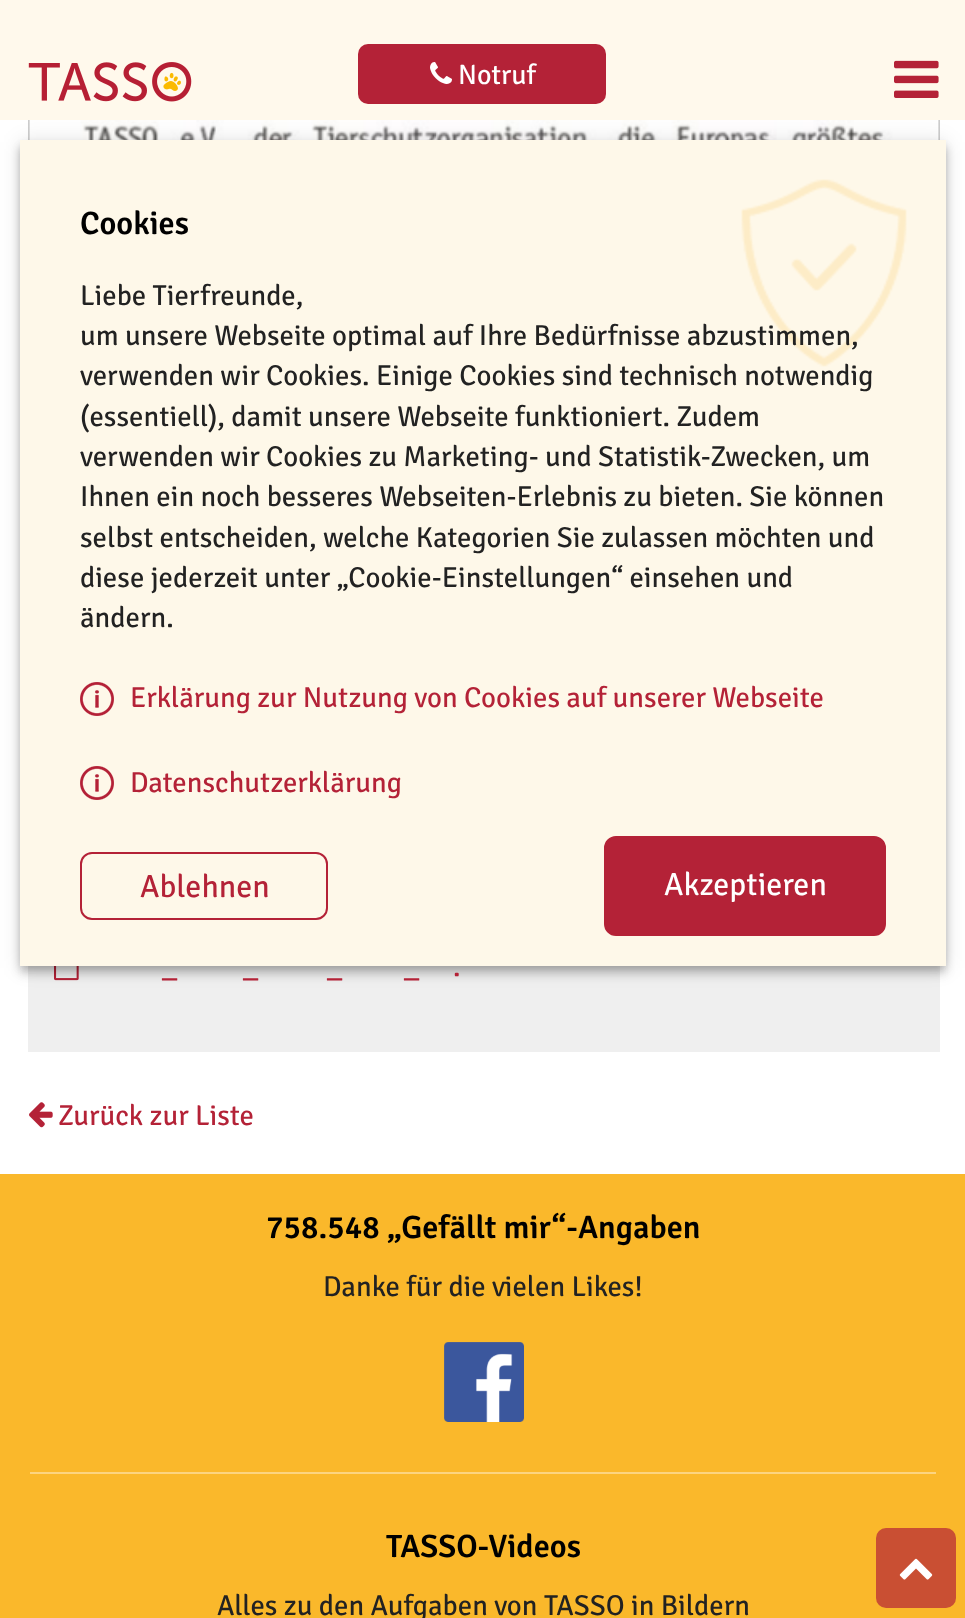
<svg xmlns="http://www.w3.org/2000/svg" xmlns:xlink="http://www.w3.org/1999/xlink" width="965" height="1618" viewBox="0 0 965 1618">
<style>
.cls-1{font:300 28px Signika Negative;fill:#ffffff}
.cls-2{font:300 28.8px Signika Negative;fill:#b42237}
.cls-3{font:600 32.4px Signika Negative;fill:#000000}
.cls-4{font:300 28.8px Signika Negative;fill:#222222}
.cls-5{font:300 32px Signika Negative;fill:#b42237}
.cls-6{font:300 32px Signika Negative;fill:#ffffff}
</style>
<rect width="100%" height="100%" fill="#ffffff"/>
<rect fill="none" stroke="#cccccc" stroke-width="2" x="29" y="-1" width="910" height="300"/>
<rect fill="#fff9ec" x="0" y="0" width="965" height="120"/>
<image xlink:href="image0.png" x="28" y="62" width="164" height="40"/>
<rect fill="#b42237" x="358" y="44" width="248" height="60" rx="10"/>
<image xlink:href="image1.png" x="430" y="62" width="22" height="22"/>
<image xlink:href="image2.png" x="894" y="60" width="45" height="38"/>
<image xlink:href="image3.png" x="29" y="120" width="910" height="20"/>
<rect fill="#efefef" x="28" y="966" width="912" height="86"/>
<image xlink:href="image4.png" x="54" y="966" width="25" height="15"/>
<image xlink:href="image5.png" x="29" y="1102" width="24" height="26"/>
<rect fill="#fab82b" x="0" y="1174" width="965" height="444"/>
<image xlink:href="image6.png" x="444" y="1342" width="80" height="80"/>
<rect fill="#fcd480" x="30" y="1472" width="906" height="2"/>
<rect fill="#c94f33" x="876" y="1528" width="80" height="80" rx="10"/>
<image xlink:href="image7.png" x="899" y="1558" width="34" height="22"/>
<rect fill="#000000" fill-opacity="0.12" filter="blur(10px)" x="20" y="142" width="926" height="826"/>
<rect fill="#000000" fill-opacity="0.14" filter="blur(5px)" x="20" y="148" width="926" height="826"/>
<rect fill="#000000" fill-opacity="0.2" filter="blur(4px)" x="22" y="146" width="922" height="822"/>
<rect fill="#fef8e9" x="20" y="140" width="926" height="826"/>
<image xlink:href="image8.png" x="741" y="179" width="166" height="188"/>
<image xlink:href="image9.png" x="80" y="682" width="34" height="34"/>
<image xlink:href="image9.png" x="80" y="766" width="34" height="34"/>
<rect fill="none" stroke="#b42237" stroke-width="2" x="81" y="853" width="246" height="66" rx="11"/>
<rect fill="#b42237" stroke="#b42237" stroke-width="2" x="605" y="837" width="280" height="98" rx="11"/>
<text class="cls-1" x="458" y="84">Notruf</text>
<text class="cls-2" x="453" y="976">.</text>
<text class="cls-2" x="162" y="976">_</text>
<text class="cls-2" x="243" y="976">_</text>
<text class="cls-2" x="327" y="976">_</text>
<text class="cls-2" x="404" y="976">_</text>
<text class="cls-2" x="58" y="1125">Zurück zur Liste</text>
<text class="cls-3" x="266" y="1238">758.548 „Gefällt mir“-Angaben</text>
<text class="cls-4" x="323" y="1296">Danke für die vielen Likes!</text>
<text class="cls-3" x="386" y="1557">TASSO-Videos</text>
<text class="cls-4" x="217" y="1615">Alles zu den Aufgaben von TASSO in Bildern</text>
<text class="cls-3" x="80" y="234">Cookies</text>
<text class="cls-4"><tspan x="80" y="305">Liebe Tierfreunde,</tspan><tspan x="80" y="345">um unsere Webseite optimal auf Ihre Bedürfnisse abzustimmen,</tspan><tspan x="80" y="385">verwenden wir Cookies. Einige Cookies sind technisch notwendig</tspan><tspan x="80" y="426">(essentiell), damit unsere Webseite funktioniert. Zudem</tspan><tspan x="80" y="466">verwenden wir Cookies zu Marketing- und Statistik-Zwecken, um</tspan><tspan x="80" y="506">Ihnen ein noch besseres Webseiten-Erlebnis zu bieten. Sie können</tspan><tspan x="80" y="547">selbst entscheiden, welche Kategorien Sie zulassen möchten und</tspan><tspan x="80" y="587">diese jederzeit unter „Cookie-Einstellungen“ einsehen und</tspan><tspan x="80" y="627">ändern.</tspan></text>
<text class="cls-2" x="130" y="707">Erklärung zur Nutzung von Cookies auf unserer Webseite</text>
<text class="cls-2" x="130" y="792">Datenschutzerklärung</text>
<text class="cls-5" x="140" y="897">Ablehnen</text>
<text class="cls-6" x="664" y="895">Akzeptieren</text>
</svg>
